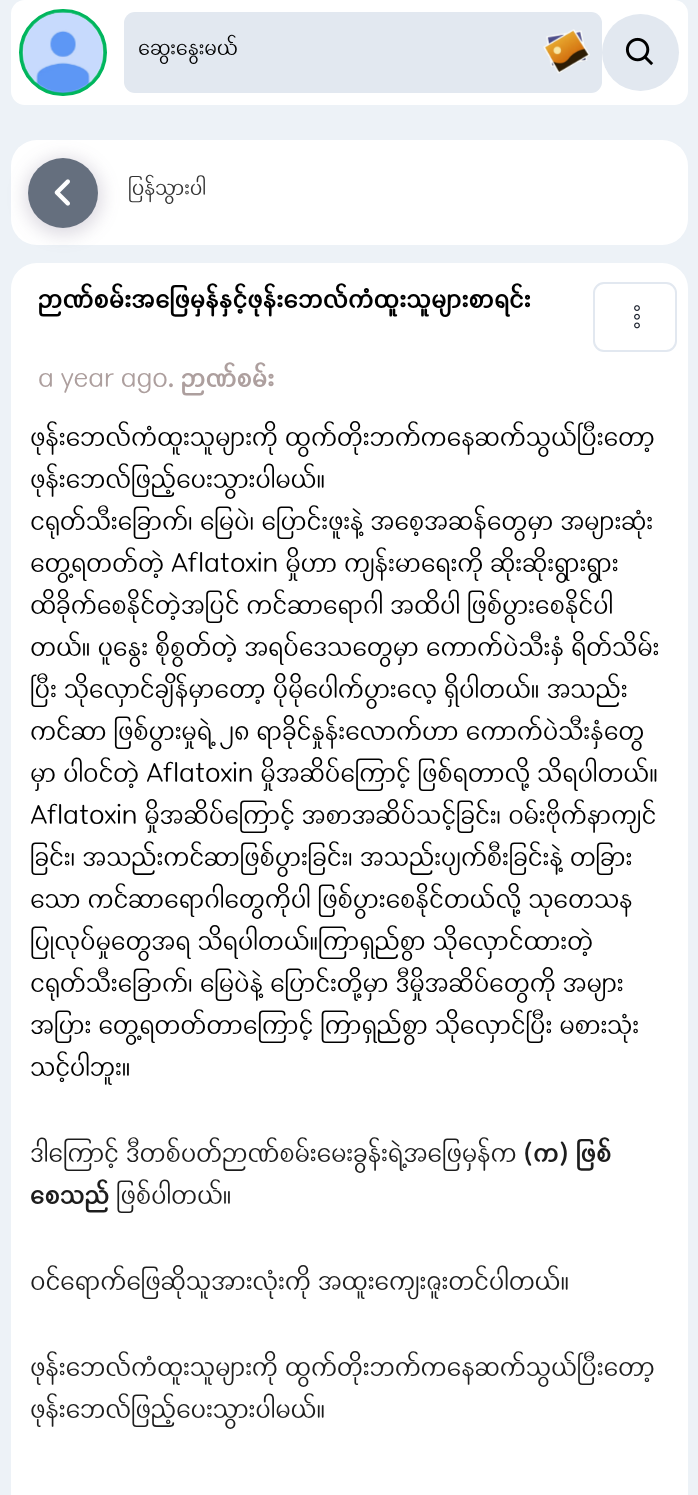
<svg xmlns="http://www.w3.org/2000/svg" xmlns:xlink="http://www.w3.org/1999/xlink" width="698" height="1495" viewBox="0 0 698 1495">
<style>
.cls-1{font:100 22.75px 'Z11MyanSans';fill:#000000}
.cls-2{font:100 22.75px 'Z11MyanSans';fill:#333333}
.cls-3{font:bold 28px 'Z11MyanSans';fill:#000000}
.cls-4{font:100 28px 'Z11MyanSans';fill:#ad9f9e}
.cls-5{font:bold 28px 'Z11MyanSans';fill:#ad9f9e}
.cls-6{font:100 28px 'Z11MyanSans';fill:#000000}
.cls-7{font:100 28px 'Z11MyanSans';fill:#1d1d1d}
.cls-8{font:bold 28px 'Z11MyanSans';fill:#1d1d1d}
</style>
<rect width="100%" height="100%" fill="#edf2f7"/>
<rect fill="#ffffff" x="11" y="0" width="677" height="105" rx="14"/>
<rect fill="none" stroke="#00b65d" stroke-width="4" x="21" y="11" width="84" height="83" rx="41.5"/>
<image xlink:href="image0.png" x="22" y="11" width="82" height="82"/>
<rect fill="#e2e8f0" x="124" y="12" width="478" height="81" rx="11"/>
<image xlink:href="image1.png" x="543" y="29" width="47" height="45"/>
<circle fill="#e2e8f0" cx="640.5" cy="52.5" r="38.5"/>
<image xlink:href="image2.png" x="625" y="37" width="29" height="29"/>
<rect fill="#ffffff" x="11" y="140" width="677" height="105" rx="26"/>
<rect fill="#523f69" fill-opacity="0.2" filter="blur(9px)" x="25" y="158" width="77" height="77" rx="38.5"/>
<circle fill="#656f7e" cx="63" cy="193" r="35"/>
<image xlink:href="image3.png" x="54" y="179" width="16" height="27"/>
<rect fill="#ffffff" stroke="#ffffff" stroke-width="2" x="12" y="264" width="675" height="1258" rx="25"/>
<rect fill="none" stroke="#e2e8f0" stroke-width="2" x="594" y="283" width="82" height="68" rx="10"/>
<image xlink:href="image4.png" x="634" y="305" width="6" height="24"/>
<text class="cls-1" x="138" y="55">ဆွေးနွေးမယ်</text>
<text class="cls-2" x="128" y="195">ပြန်သွားပါ</text>
<text class="cls-3" x="38" y="308">ဉာဏ်စမ်းအဖြေမှန်နှင့်ဖုန်းဘေလ်ကံထူးသူများစာရင်း</text>
<text class="cls-4" x="38" y="387">a year ago</text>
<text class="cls-5" x="168" y="387">. ဉာဏ်စမ်း</text>
<text class="cls-6"><tspan x="30" y="446">ဖုန်းဘေလ်ကံထူးသူများကို ထွက်တိုးဘက်ကနေဆက်သွယ်ပြီးတော့</tspan><tspan x="30" y="488">ဖုန်းဘေလ်ဖြည့်ပေးသွားပါမယ်။</tspan><tspan x="30" y="530">ငရုတ်သီးခြောက်၊ မြေပဲ၊ ပြောင်းဖူးနဲ့ အစေ့အဆန်တွေမှာ အများဆုံး</tspan><tspan x="30" y="572">တွေ့ရတတ်တဲ့ Aflatoxin မှိုဟာ ကျန်းမာရေးကို ဆိုးဆိုးရွားရွား</tspan><tspan x="30" y="614">ထိခိုက်စေနိုင်တဲ့အပြင် ကင်ဆာရောဂါ အထိပါ ဖြစ်ပွားစေနိုင်ပါ</tspan><tspan x="30" y="656">တယ်။ ပူနွေး စိုစွတ်တဲ့ အရပ်ဒေသတွေမှာ ကောက်ပဲသီးနှံ ရိတ်သိမ်း</tspan><tspan x="30" y="698">ပြီး သိုလှောင်ချိန်မှာတော့ ပိုမိုပေါက်ပွားလေ့ ရှိပါတယ်။ အသည်း</tspan><tspan x="30" y="740">ကင်ဆာ ဖြစ်ပွားမှုရဲ့ ၂၈ ရာခိုင်နှုန်းလောက်ဟာ ကောက်ပဲသီးနှံတွေ</tspan><tspan x="30" y="782">မှာ ပါဝင်တဲ့ Aflatoxin မှိုအဆိပ်ကြောင့် ဖြစ်ရတာလို့ သိရပါတယ်။</tspan><tspan x="30" y="824">Aflatoxin မှိုအဆိပ်ကြောင့် အစာအဆိပ်သင့်ခြင်း၊ ဝမ်းဗိုက်နာကျင်</tspan><tspan x="30" y="866">ခြင်း၊ အသည်းကင်ဆာဖြစ်ပွားခြင်း၊ အသည်းပျက်စီးခြင်းနဲ့ တခြား</tspan><tspan x="30" y="908">သော ကင်ဆာရောဂါတွေကိုပါ ဖြစ်ပွားစေနိုင်တယ်လို့ သုတေသန</tspan><tspan x="30" y="950">ပြုလုပ်မှုတွေအရ သိရပါတယ်။ကြာရှည်စွာ သိုလှောင်ထားတဲ့</tspan><tspan x="30" y="992">ငရုတ်သီးခြောက်၊ မြေပဲနဲ့ ပြောင်းတို့မှာ ဒီမှိုအဆိပ်တွေကို အများ</tspan><tspan x="30" y="1034">အပြား တွေ့ရတတ်တာကြောင့် ကြာရှည်စွာ သိုလှောင်ပြီး မစားသုံး</tspan><tspan x="30" y="1076">သင့်ပါဘူး။</tspan></text>
<text class="cls-7" x="30" y="1162">ဒါကြောင့် ဒီတစ်ပတ်ဉာဏ်စမ်းမေးခွန်းရဲ့အဖြေမှန်က</text>
<text class="cls-8" x="523" y="1162">(က) ဖြစ်</text>
<text class="cls-8" x="30" y="1204">စေသည်</text>
<text class="cls-7" x="116" y="1204">ဖြစ်ပါတယ်။</text>
<text class="cls-7" x="30" y="1290">ဝင်ရောက်ဖြေဆိုသူအားလုံးကို အထူးကျေးဇူးတင်ပါတယ်။</text>
<text class="cls-7"><tspan x="30" y="1376">ဖုန်းဘေလ်ကံထူးသူများကို ထွက်တိုးဘက်ကနေဆက်သွယ်ပြီးတော့</tspan><tspan x="30" y="1418">ဖုန်းဘေလ်ဖြည့်ပေးသွားပါမယ်။</tspan></text>
</svg>
